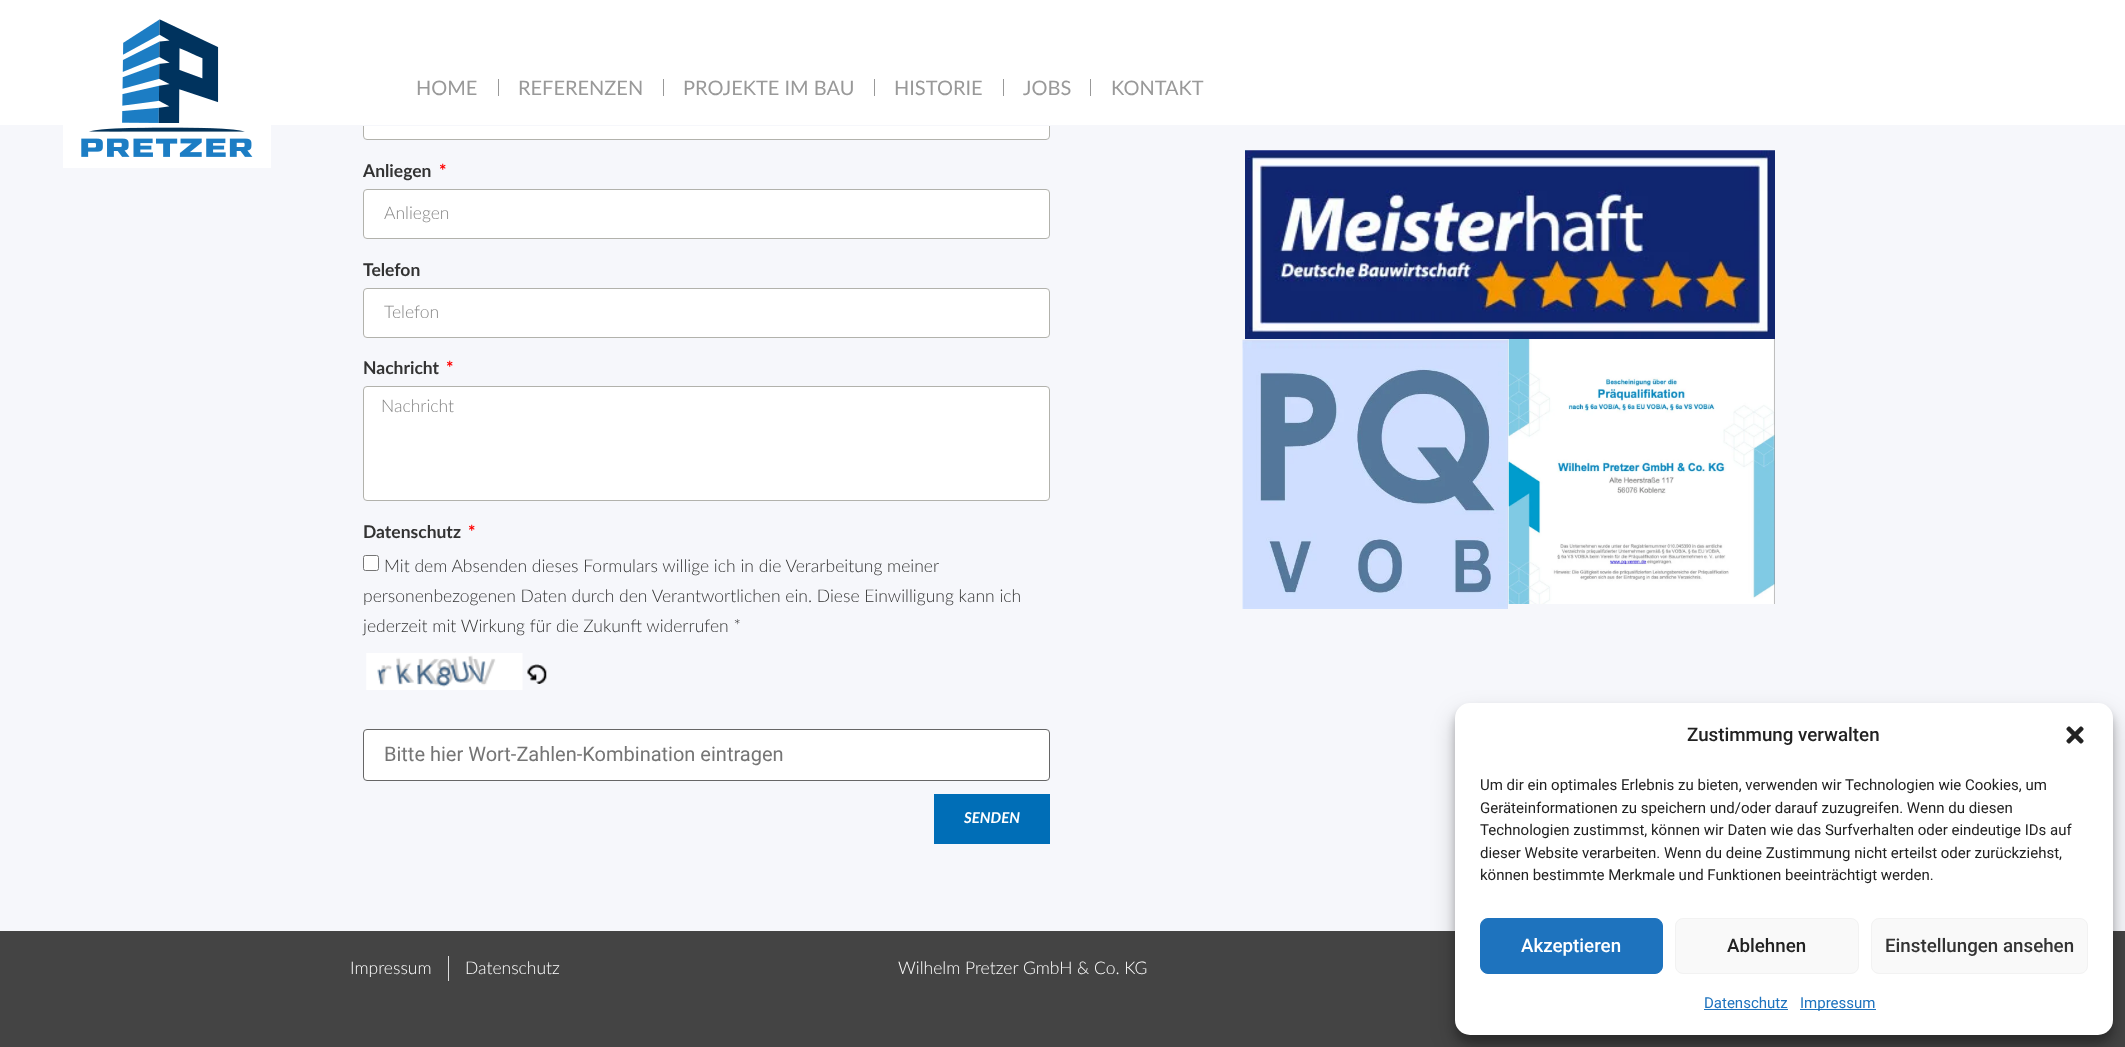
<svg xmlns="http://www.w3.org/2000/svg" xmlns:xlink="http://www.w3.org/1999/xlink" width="2125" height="1047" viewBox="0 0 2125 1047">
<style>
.cls-1{font:20px Lato;fill:#999999}
.cls-2{font:bold 17.5px Lato;fill:#333333}
.cls-3{font:bold 17.5px Lato;fill:#ff0000}
.cls-4{font:300 17.5px Lato;fill:#858585}
.cls-5{font:300 17.5px Lato;fill:#333333}
.cls-6{font:20px Roboto;fill:#757575}
.cls-7{font:italic bold 15px Lato;fill:#ffffff}
.cls-8{font:300 17.5px Lato;fill:#ffffff}
.cls-9{font:500 18.75px Roboto;fill:#222222}
.cls-10{font:15px Roboto;fill:#222222}
.cls-11{font:500 18.75px Roboto;fill:#ffffff}
.cls-12{font:500 18.75px Roboto;fill:#333333}
.cls-13{font:15px Roboto;fill:#1e73be}
</style>
<rect width="100%" height="100%" fill="#f6f7fb"/>
<rect fill="#ffffff" stroke="#b2b2ac" x="363.5" y="90.5" width="686" height="49" rx="3.5"/>
<rect fill="#ffffff" x="0" y="0" width="2125" height="125"/>
<rect fill="#f6f7fb" x="363" y="125" width="687" height="1"/>
<rect fill="#ffffff" x="63" y="125" width="208" height="43"/>
<image xlink:href="image0.png" x="81" y="19" width="172" height="138"/>
<rect fill="#999999" x="498" y="79" width="1" height="17"/>
<rect fill="#999999" x="663" y="79" width="1" height="17"/>
<rect fill="#999999" x="874" y="79" width="1" height="17"/>
<rect fill="#999999" x="1003" y="79" width="1" height="17"/>
<rect fill="#999999" x="1090" y="79" width="1" height="17"/>
<rect fill="#ffffff" stroke="#b2b2ac" x="363.5" y="189.5" width="686" height="49" rx="3.5"/>
<rect fill="#ffffff" stroke="#b2b2ac" x="363.5" y="288.5" width="686" height="49" rx="3.5"/>
<rect fill="#ffffff" stroke="#b2b2ac" x="363.5" y="386.5" width="686" height="114" rx="3.5"/>
<rect fill="#ffffff" stroke="#767676" x="363.5" y="555.5" width="15" height="15" rx="2"/>
<image xlink:href="image1.png" x="366" y="653" width="157" height="37"/>
<image xlink:href="image2.png" x="527" y="664" width="20" height="20"/>
<rect fill="#ffffff" stroke="#666666" x="363.5" y="729.5" width="686" height="51" rx="3.5"/>
<rect fill="#006eb7" x="934" y="794" width="116" height="50"/>
<image xlink:href="image3.png" x="1245" y="150" width="530" height="189"/>
<image xlink:href="image4.png" x="1242" y="339" width="267" height="270"/>
<image xlink:href="image5.png" x="1508" y="339" width="267" height="265"/>
<rect fill="#444444" x="0" y="931" width="2125" height="116"/>
<rect fill="#dddddd" x="448" y="956" width="1" height="25"/>
<rect fill="#000000" fill-opacity="0.23" filter="blur(4px)" x="1455" y="710" width="658" height="333" rx="15"/>
<rect fill="#000000" fill-opacity="0.19" filter="blur(12.5px)" x="1455" y="715" width="658" height="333" rx="15"/>
<rect fill="#ffffff" x="1455" y="703" width="658" height="332" rx="15"/>
<image xlink:href="image6.png" x="2066" y="726" width="18" height="18"/>
<rect fill="#1e73be" stroke="#1e73be" x="1480.5" y="918.5" width="182" height="55" rx="7.5"/>
<rect fill="#f9f9f9" stroke="#f2f2f2" x="1675.5" y="918.5" width="183" height="55" rx="7.5"/>
<rect fill="#f9f9f9" stroke="#f2f2f2" x="1871.5" y="918.5" width="216" height="55" rx="7.5"/>
<rect fill="#1e73be" x="1704" y="1009" width="84" height="1"/>
<rect fill="#1e73be" x="1800" y="1009" width="76" height="1"/>
<text class="cls-1" x="416" y="95">HOME</text>
<text class="cls-1" x="518" y="95">REFERENZEN</text>
<text class="cls-1" x="683" y="95">PROJEKTE IM BAU</text>
<text class="cls-1" x="894" y="95">HISTORIE</text>
<text class="cls-1" x="1023" y="95">JOBS</text>
<text class="cls-1" x="1111" y="95">KONTAKT</text>
<text class="cls-2" x="363" y="177">Anliegen</text>
<text class="cls-3" x="439" y="177">*</text>
<text class="cls-4" x="384" y="219">Anliegen</text>
<text class="cls-2" x="363" y="276">Telefon</text>
<text class="cls-4" x="384" y="318">Telefon</text>
<text class="cls-2" x="363" y="374">Nachricht</text>
<text class="cls-3" x="446" y="374">*</text>
<text class="cls-4" x="381" y="412">Nachricht</text>
<text class="cls-2" x="363" y="538">Datenschutz</text>
<text class="cls-3" x="468" y="538">*</text>
<text class="cls-5" x="384" y="572">Mit dem Absenden dieses Formulars willige ich in die Verarbeitung meiner</text>
<text class="cls-5"><tspan x="363" y="602">personenbezogenen Daten durch den Verantwortlichen ein. Diese Einwilligung kann ich</tspan><tspan x="363" y="632">jederzeit mit Wirkung für die Zukunft widerrufen *</tspan></text>
<text class="cls-6" x="384" y="761">Bitte hier Wort-Zahlen-Kombination eintragen</text>
<text class="cls-7" x="964" y="823">SENDEN</text>
<text class="cls-8" x="350" y="974">Impressum</text>
<text class="cls-8" x="465" y="974">Datenschutz</text>
<text class="cls-8" x="898" y="974">Wilhelm Pretzer GmbH &amp; Co. KG</text>
<text class="cls-9" x="1687" y="741">Zustimmung verwalten</text>
<text class="cls-10"><tspan x="1480" y="790">Um dir ein optimales Erlebnis zu bieten, verwenden wir Technologien wie Cookies, um</tspan><tspan x="1480" y="813">Geräteinformationen zu speichern und/oder darauf zuzugreifen. Wenn du diesen</tspan><tspan x="1480" y="835">Technologien zustimmst, können wir Daten wie das Surfverhalten oder eindeutige IDs auf</tspan><tspan x="1480" y="858">dieser Website verarbeiten. Wenn du deine Zustimmung nicht erteilst oder zurückziehst,</tspan><tspan x="1480" y="880">können bestimmte Merkmale und Funktionen beeinträchtigt werden.</tspan></text>
<text class="cls-11" x="1521" y="952">Akzeptieren</text>
<text class="cls-9" x="1727" y="952">Ablehnen</text>
<text class="cls-12" x="1885" y="952">Einstellungen ansehen</text>
<text class="cls-13" x="1704" y="1008">Datenschutz</text>
<text class="cls-13" x="1800" y="1008">Impressum</text>
</svg>
